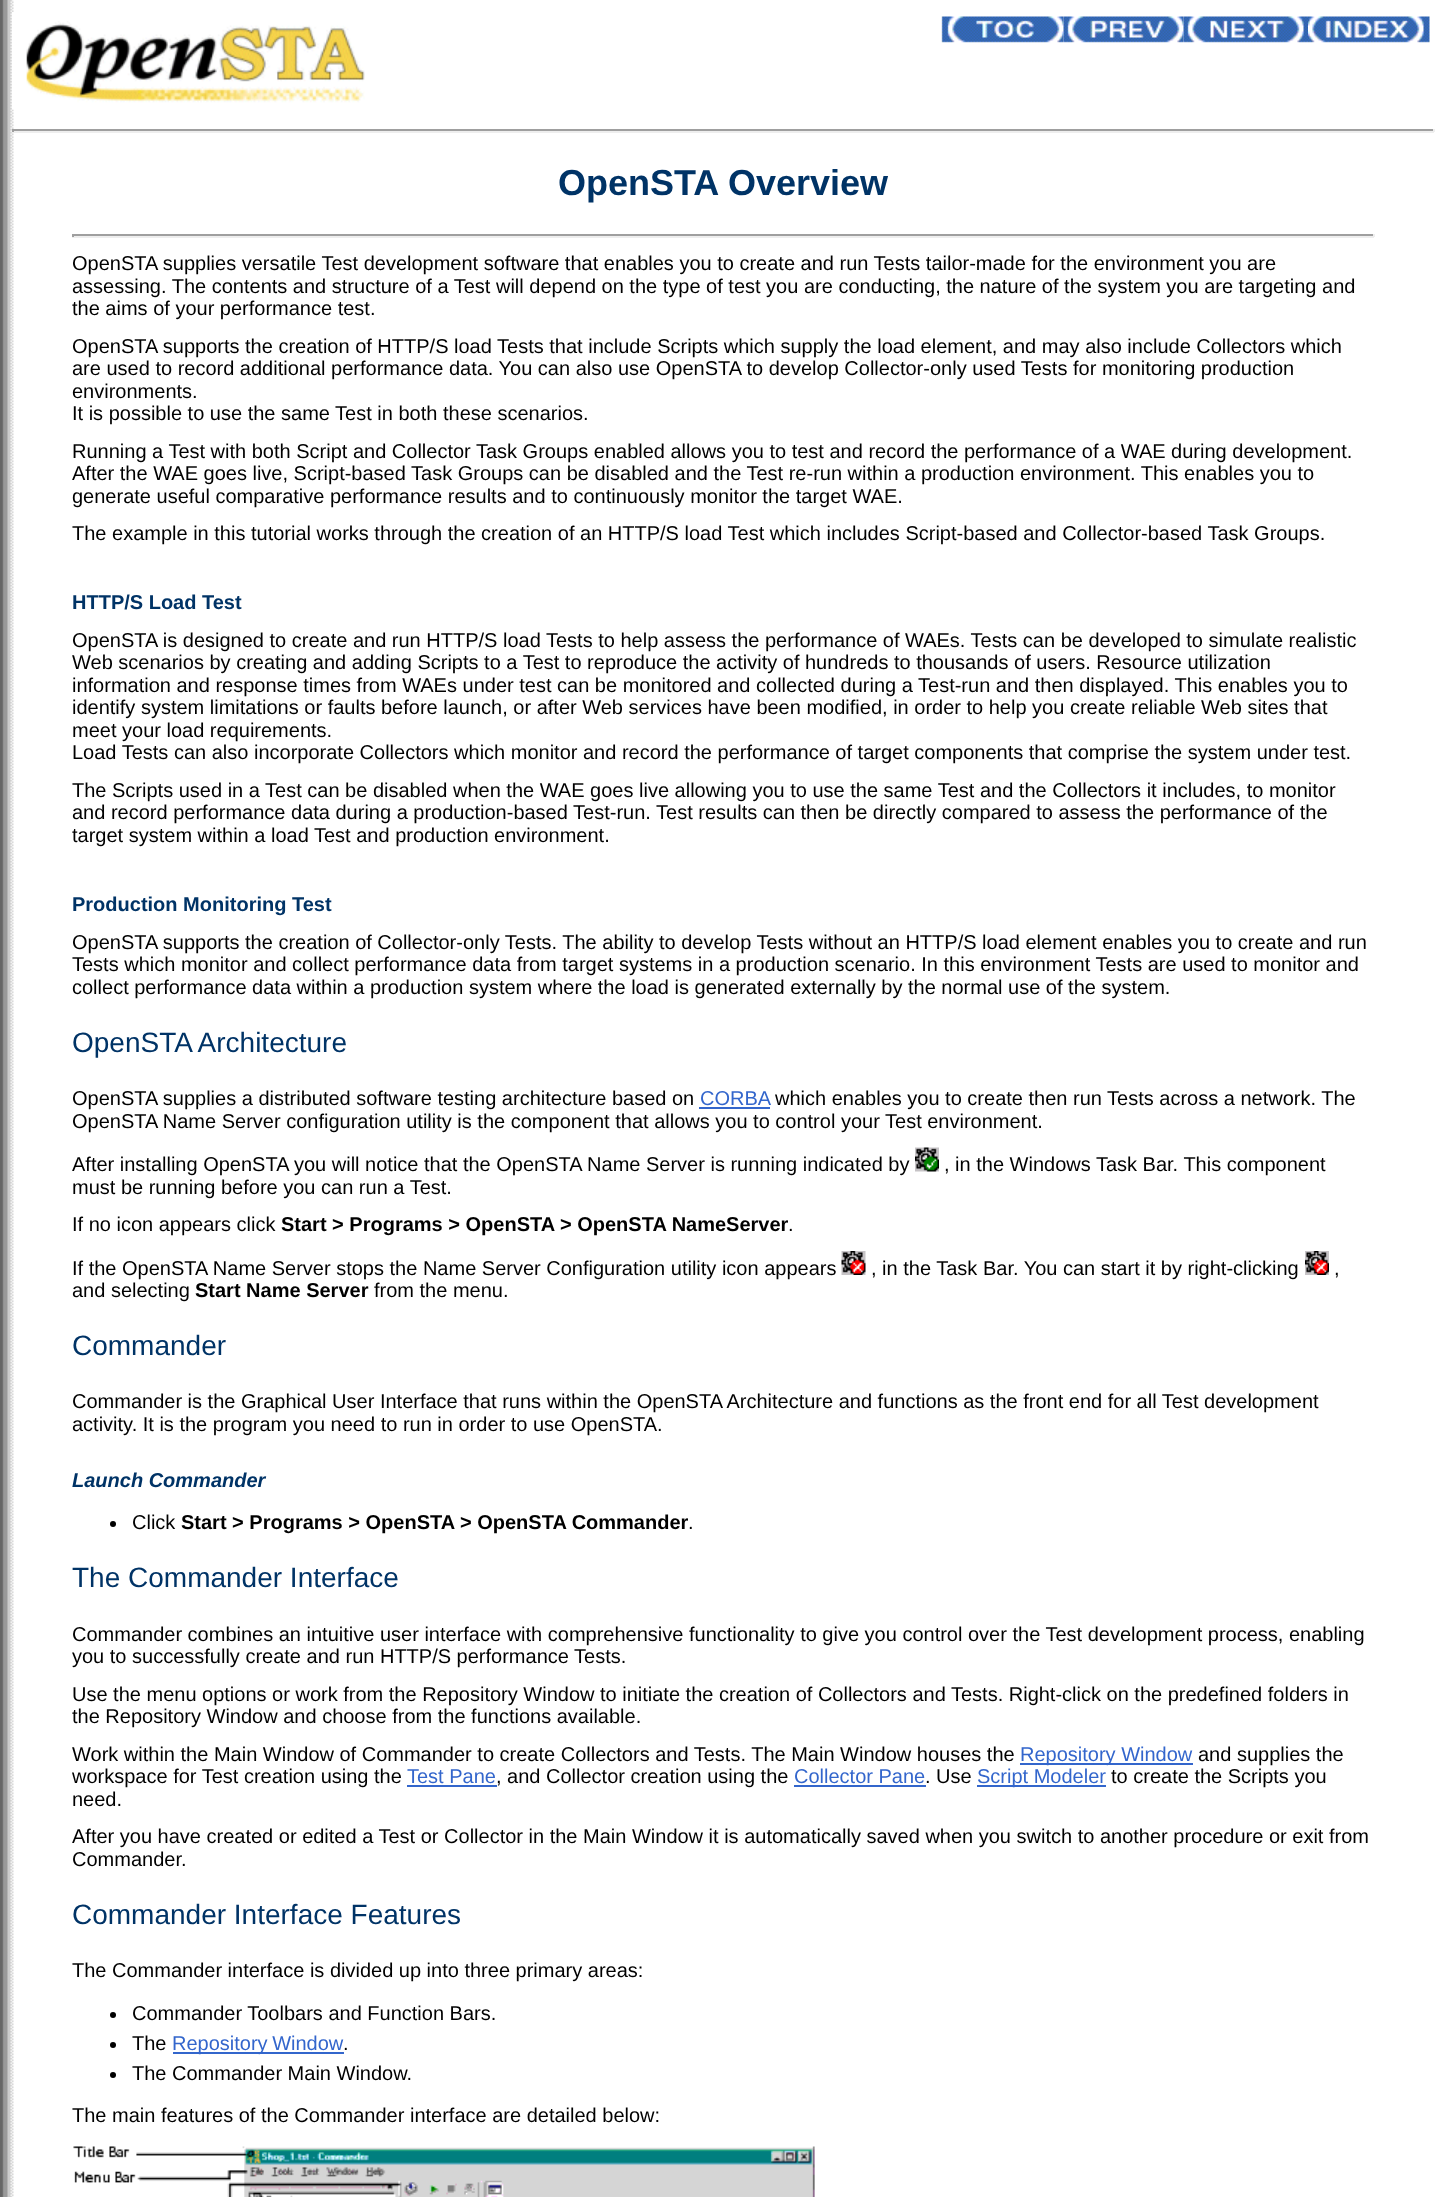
<svg xmlns="http://www.w3.org/2000/svg" xmlns:xlink="http://www.w3.org/1999/xlink" width="1445" height="2197" viewBox="0 0 1445 2197">
<style>
.cls-1{font:bold 36px Liberation Sans;fill:#003366}
.cls-2{font:20px Liberation Sans;fill:#000000}
.cls-3{font:bold 20px Liberation Sans;fill:#003366}
.cls-4{font:28px Liberation Sans;fill:#003366}
.cls-5{font:20px Liberation Sans;fill:#3366cc}
.cls-6{font:bold 20px Liberation Sans;fill:#000000}
.cls-7{font:italic bold 20px Liberation Sans;fill:#003366}
</style>
<rect width="100%" height="100%" fill="#ffffff"/>
<image xlink:href="image0.png" x="0" y="0" width="14" height="2197"/>
<image xlink:href="image1.png" x="12" y="12" width="353" height="98"/>
<image xlink:href="image2.png" x="941" y="16" width="123" height="27"/>
<image xlink:href="image3.png" x="1063" y="16" width="121" height="27"/>
<image xlink:href="image4.png" x="1183" y="16" width="125" height="27"/>
<image xlink:href="image5.png" x="1308" y="16" width="122" height="27"/>
<rect fill="#9f9f9f" x="12" y="129" width="1422" height="2"/>
<rect fill="#eeeeee" x="1433" y="129" width="2" height="3"/>
<rect fill="#eeeeee" x="12" y="131" width="1422" height="2"/>
<rect fill="#9f9f9f" x="12" y="129" width="2" height="3"/>
<rect fill="#9f9f9f" x="72" y="234" width="1302" height="2"/>
<rect fill="#eeeeee" x="1373" y="234" width="2" height="3"/>
<rect fill="#eeeeee" x="72" y="236" width="1302" height="2"/>
<rect fill="#9f9f9f" x="72" y="234" width="2" height="3"/>
<rect fill="#3366cc" x="699" y="1107" width="71" height="2"/>
<image xlink:href="image6.png" x="915" y="1147" width="24" height="25"/>
<image xlink:href="image7.png" x="841" y="1251" width="25" height="24"/>
<image xlink:href="image8.png" x="1305" y="1251" width="24" height="24"/>
<circle fill="#000000" cx="113" cy="1524" r="3"/>
<rect fill="#3366cc" x="1020" y="1763" width="173" height="2"/>
<rect fill="#3366cc" x="407" y="1785" width="90" height="2"/>
<rect fill="#3366cc" x="794" y="1785" width="132" height="2"/>
<rect fill="#3366cc" x="977" y="1785" width="129" height="2"/>
<circle fill="#000000" cx="113" cy="2015" r="3"/>
<circle fill="#000000" cx="113" cy="2045" r="3"/>
<rect fill="#3366cc" x="173" y="2052" width="171" height="2"/>
<circle fill="#000000" cx="113" cy="2075" r="3"/>
<image xlink:href="image9.png" x="73" y="2146" width="742" height="51"/>
<text class="cls-1" x="558" y="195">OpenSTA Overview</text>
<text class="cls-2"><tspan x="72" y="270">OpenSTA supplies versatile Test development software that enables you to create and run Tests tailor-made for the environment you are</tspan><tspan x="72" y="293">assessing. The contents and structure of a Test will depend on the type of test you are conducting, the nature of the system you are targeting and</tspan><tspan x="72" y="315">the aims of your performance test.</tspan><tspan x="72" y="353">OpenSTA supports the creation of HTTP/S load Tests that include Scripts which supply the load element, and may also include Collectors which</tspan><tspan x="72" y="375">are used to record additional performance data. You can also use OpenSTA to develop Collector-only used Tests for monitoring production</tspan><tspan x="72" y="398">environments.</tspan><tspan x="72" y="420">It is possible to use the same Test in both these scenarios.</tspan><tspan x="72" y="458">Running a Test with both Script and Collector Task Groups enabled allows you to test and record the performance of a WAE during development.</tspan><tspan x="72" y="480">After the WAE goes live, Script-based Task Groups can be disabled and the Test re-run within a production environment. This enables you to</tspan><tspan x="72" y="503">generate useful comparative performance results and to continuously monitor the target WAE.</tspan><tspan x="72" y="540">The example in this tutorial works through the creation of an HTTP/S load Test which includes Script-based and Collector-based Task Groups.</tspan></text>
<text class="cls-3" x="72" y="609">HTTP/S Load Test</text>
<text class="cls-2"><tspan x="72" y="647">OpenSTA is designed to create and run HTTP/S load Tests to help assess the performance of WAEs. Tests can be developed to simulate realistic</tspan><tspan x="72" y="669">Web scenarios by creating and adding Scripts to a Test to reproduce the activity of hundreds to thousands of users. Resource utilization</tspan><tspan x="72" y="692">information and response times from WAEs under test can be monitored and collected during a Test-run and then displayed. This enables you to</tspan><tspan x="72" y="714">identify system limitations or faults before launch, or after Web services have been modified, in order to help you create reliable Web sites that</tspan><tspan x="72" y="737">meet your load requirements.</tspan><tspan x="72" y="759">Load Tests can also incorporate Collectors which monitor and record the performance of target components that comprise the system under test.</tspan><tspan x="72" y="797">The Scripts used in a Test can be disabled when the WAE goes live allowing you to use the same Test and the Collectors it includes, to monitor</tspan><tspan x="72" y="819">and record performance data during a production-based Test-run. Test results can then be directly compared to assess the performance of the</tspan><tspan x="72" y="842">target system within a load Test and production environment.</tspan></text>
<text class="cls-3" x="72" y="911">Production Monitoring Test</text>
<text class="cls-2"><tspan x="72" y="949">OpenSTA supports the creation of Collector-only Tests. The ability to develop Tests without an HTTP/S load element enables you to create and run</tspan><tspan x="72" y="971">Tests which monitor and collect performance data from target systems in a production scenario. In this environment Tests are used to monitor and</tspan><tspan x="72" y="994">collect performance data within a production system where the load is generated externally by the normal use of the system.</tspan></text>
<text class="cls-4" x="72" y="1052">OpenSTA Architecture</text>
<text class="cls-2" x="72" y="1105">OpenSTA supplies a distributed software testing architecture based on</text>
<text class="cls-5" x="700" y="1105">CORBA</text>
<text class="cls-2" x="775" y="1105">which enables you to create then run Tests across a network. The</text>
<text class="cls-2" x="72" y="1128">OpenSTA Name Server configuration utility is the component that allows you to control your Test environment.</text>
<text class="cls-2" x="72" y="1171">After installing OpenSTA you will notice that the OpenSTA Name Server is running indicated by</text>
<text class="cls-2" x="944" y="1171">, in the Windows Task Bar. This component</text>
<text class="cls-2"><tspan x="72" y="1194">must be running before you can run a Test.</tspan><tspan x="72" y="1231">If no icon appears click</tspan></text>
<text class="cls-6" x="281" y="1231">Start &gt; Programs &gt; OpenSTA &gt; OpenSTA NameServer</text>
<text class="cls-2" x="788" y="1231">.</text>
<text class="cls-2" x="72" y="1275">If the OpenSTA Name Server stops the Name Server Configuration utility icon appears</text>
<text class="cls-2" x="871" y="1275">, in the Task Bar. You can start it by right-clicking</text>
<text class="cls-2" x="1334" y="1275">,</text>
<text class="cls-2" x="72" y="1297">and selecting</text>
<text class="cls-6" x="195" y="1297">Start Name Server</text>
<text class="cls-2" x="374" y="1297">from the menu.</text>
<text class="cls-4" x="72" y="1355">Commander</text>
<text class="cls-2"><tspan x="72" y="1408">Commander is the Graphical User Interface that runs within the OpenSTA Architecture and functions as the front end for all Test development</tspan><tspan x="72" y="1431">activity. It is the program you need to run in order to use OpenSTA.</tspan></text>
<text class="cls-7" x="72" y="1487">Launch Commander</text>
<text class="cls-2" x="132" y="1529">Click</text>
<text class="cls-6" x="181" y="1529">Start &gt; Programs &gt; OpenSTA &gt; OpenSTA Commander</text>
<text class="cls-2" x="688" y="1529">.</text>
<text class="cls-4" x="72" y="1587">The Commander Interface</text>
<text class="cls-2"><tspan x="72" y="1641">Commander combines an intuitive user interface with comprehensive functionality to give you control over the Test development process, enabling</tspan><tspan x="72" y="1663">you to successfully create and run HTTP/S performance Tests.</tspan><tspan x="72" y="1701">Use the menu options or work from the Repository Window to initiate the creation of Collectors and Tests. Right-click on the predefined folders in</tspan><tspan x="72" y="1723">the Repository Window and choose from the functions available.</tspan><tspan x="72" y="1761">Work within the Main Window of Commander to create Collectors and Tests. The Main Window houses the</tspan></text>
<text class="cls-5" x="1020" y="1761">Repository Window</text>
<text class="cls-2" x="1198" y="1761">and supplies the</text>
<text class="cls-2" x="72" y="1783">workspace for Test creation using the</text>
<text class="cls-5" x="407" y="1783">Test Pane</text>
<text class="cls-2" x="496" y="1783">, and Collector creation using the</text>
<text class="cls-5" x="794" y="1783">Collector Pane</text>
<text class="cls-2" x="925" y="1783">. Use</text>
<text class="cls-5" x="977" y="1783">Script Modeler</text>
<text class="cls-2" x="1111" y="1783">to create the Scripts you</text>
<text class="cls-2"><tspan x="72" y="1806">need.</tspan><tspan x="72" y="1843">After you have created or edited a Test or Collector in the Main Window it is automatically saved when you switch to another procedure or exit from</tspan><tspan x="72" y="1866">Commander.</tspan></text>
<text class="cls-4" x="72" y="1924">Commander Interface Features</text>
<text class="cls-2" x="72" y="1977">The Commander interface is divided up into three primary areas:</text>
<text class="cls-2"><tspan x="132" y="2020">Commander Toolbars and Function Bars.</tspan><tspan x="132" y="2050">The</tspan></text>
<text class="cls-5" x="172" y="2050" word-spacing="-1">Repository Window</text>
<text class="cls-2" x="343" y="2050">.</text>
<text class="cls-2" x="132" y="2080">The Commander Main Window.</text>
<text class="cls-2" x="72" y="2122">The main features of the Commander interface are detailed below:</text>
</svg>
